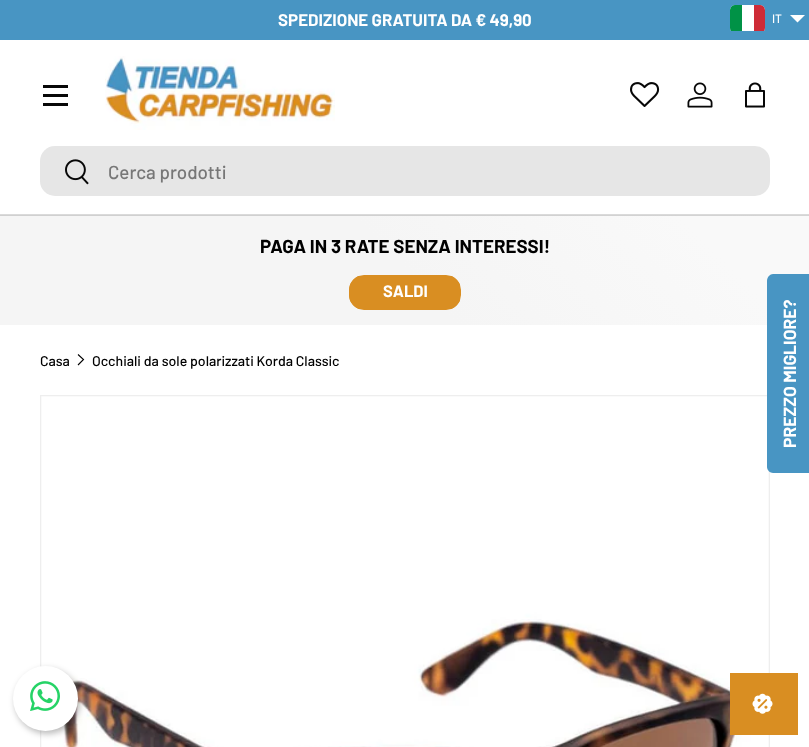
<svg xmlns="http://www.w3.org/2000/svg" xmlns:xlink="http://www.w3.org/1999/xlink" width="809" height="747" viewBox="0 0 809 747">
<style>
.cls-1{font:bold 16.9px Barlow;fill:#ffffff}
.cls-2{font:500 12px Barlow;fill:#ffffff}
.cls-3{font:500 18.75px Barlow;fill:#777777}
.cls-4{font:bold 18.75px Barlow;fill:#000000}
.cls-5{font:bold 16.5px Barlow;fill:#ffffff}
.cls-6{font:500 14.1px Barlow;fill:#000000}
.cls-7{font:bold 17.5px Barlow;fill:#ffffff}
</style>
<defs>
<clipPath id="clip1"><rect x="730" y="5" width="35" height="28" rx="5"/></clipPath>
<linearGradient id="g1" gradientUnits="userSpaceOnUse" x1="168" y1="390" x2="642" y2="-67"><stop offset="0.5" stop-color="#d0d0d0"/><stop offset="0.86" stop-color="#d4d4d4"/></linearGradient>
<linearGradient id="g2" gradientUnits="userSpaceOnUse" x1="168" y1="499" x2="642" y2="42"><stop offset="0.5" stop-color="#f5f5f5"/><stop offset="0.86" stop-color="#f9f9f9"/></linearGradient>
<clipPath id="clip2"><rect x="349" y="275" width="112" height="35" rx="15"/></clipPath>
<linearGradient id="g3" gradientUnits="userSpaceOnUse" x1="136" y1="253" x2="454" y2="332"><stop offset="0.6" stop-color="#e1a650"/><stop offset="0.6" stop-color="#d98e22"/><stop offset="1" stop-color="#d98e22"/></linearGradient>
</defs>
<rect width="100%" height="100%" fill="#ffffff"/>
<rect fill="#4895c3" x="0" y="0" width="809" height="40"/>
<g clip-path="url(#clip1)">
<path fill="#ffffff" d="M735 5H760C763 5 765 7 765 10V31H730V10C730 7 732 5 735 5Z"/>
<path fill="#009246" d="M735 5H742V31H730V10C730 7 732 5 735 5Z"/>
<path fill="#ce2b37" d="M754 5H760C763 5 765 7 765 10V31H754Z"/>
</g>
<path fill="#ffffff" d="M790 15H805L797.5 22.5Z"/>
<rect fill="#dadada" x="0" y="214" width="809" height="1"/>
<rect fill="#070707" x="43" y="85" width="25" height="3"/>
<rect fill="#070707" x="43" y="103" width="25" height="3"/>
<rect fill="#070707" x="43" y="94" width="25" height="3"/>
<image xlink:href="image0.png" x="105" y="56" width="230" height="74"/>
<image xlink:href="image1.png" x="630" y="82" width="30" height="25"/>
<image xlink:href="image2.png" x="687" y="82" width="26" height="26"/>
<image xlink:href="image3.png" x="745" y="82" width="20" height="26"/>
<rect fill="#e6e6e6" x="40" y="146" width="730" height="50" rx="15"/>
<image xlink:href="image4.png" x="65" y="159" width="24" height="26"/>
<rect fill="url(#g1)" x="0" y="215" width="809" height="1"/>
<rect fill="url(#g2)" x="0" y="216" width="809" height="109"/>
<g clip-path="url(#clip2)">
<rect fill="url(#g3)" x="349" y="276" width="111" height="33"/>
</g>
<rect fill="none" stroke="#d98e22" x="349.5" y="275.5" width="111" height="34" rx="14.5"/>
<path fill="none" stroke="#000000" stroke-width="1.1" d="M78 354.5L83.5 359.5L78 365"/>
<rect fill="#f4f4f4" stroke="#eeeeee" x="40.5" y="395.5" width="729" height="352"/>
<image xlink:href="image5.png" x="41" y="396" width="728" height="351"/>
<path fill="#4895c3" d="M767 467V281C767 277 770 274 773 274H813V473H773C770 473 767 470 767 467Z"/>
<rect fill="#000000" fill-opacity="0.27" filter="blur(3px)" x="15" y="669" width="65" height="65" rx="32.5"/>
<circle fill="#ffffff" cx="45.5" cy="698.5" r="32.5"/>
<image xlink:href="image6.png" x="30" y="681" width="30" height="30"/>
<rect fill="#d98e22" x="730" y="673" width="68" height="62"/>
<image xlink:href="image7.png" x="752" y="693" width="21" height="21"/>
<text class="cls-1" x="278" y="26">SPEDIZIONE GRATUITA DA € 49,90</text>
<text class="cls-2" x="772" y="23">IT</text>
<text class="cls-3" x="108" y="179">Cerca prodotti</text>
<text class="cls-4" x="260" y="253">PAGA IN 3 RATE SENZA INTERESSI!</text>
<text class="cls-5" x="383" y="297">SALDI</text>
<text class="cls-6" x="40" y="366">Casa</text>
<text class="cls-6" x="92" y="366">Occhiali da sole polarizzati Korda Classic</text>
<text class="cls-7" x="796" y="448" transform="rotate(-90 796 448)">PREZZO MIGLIORE?</text>
</svg>
